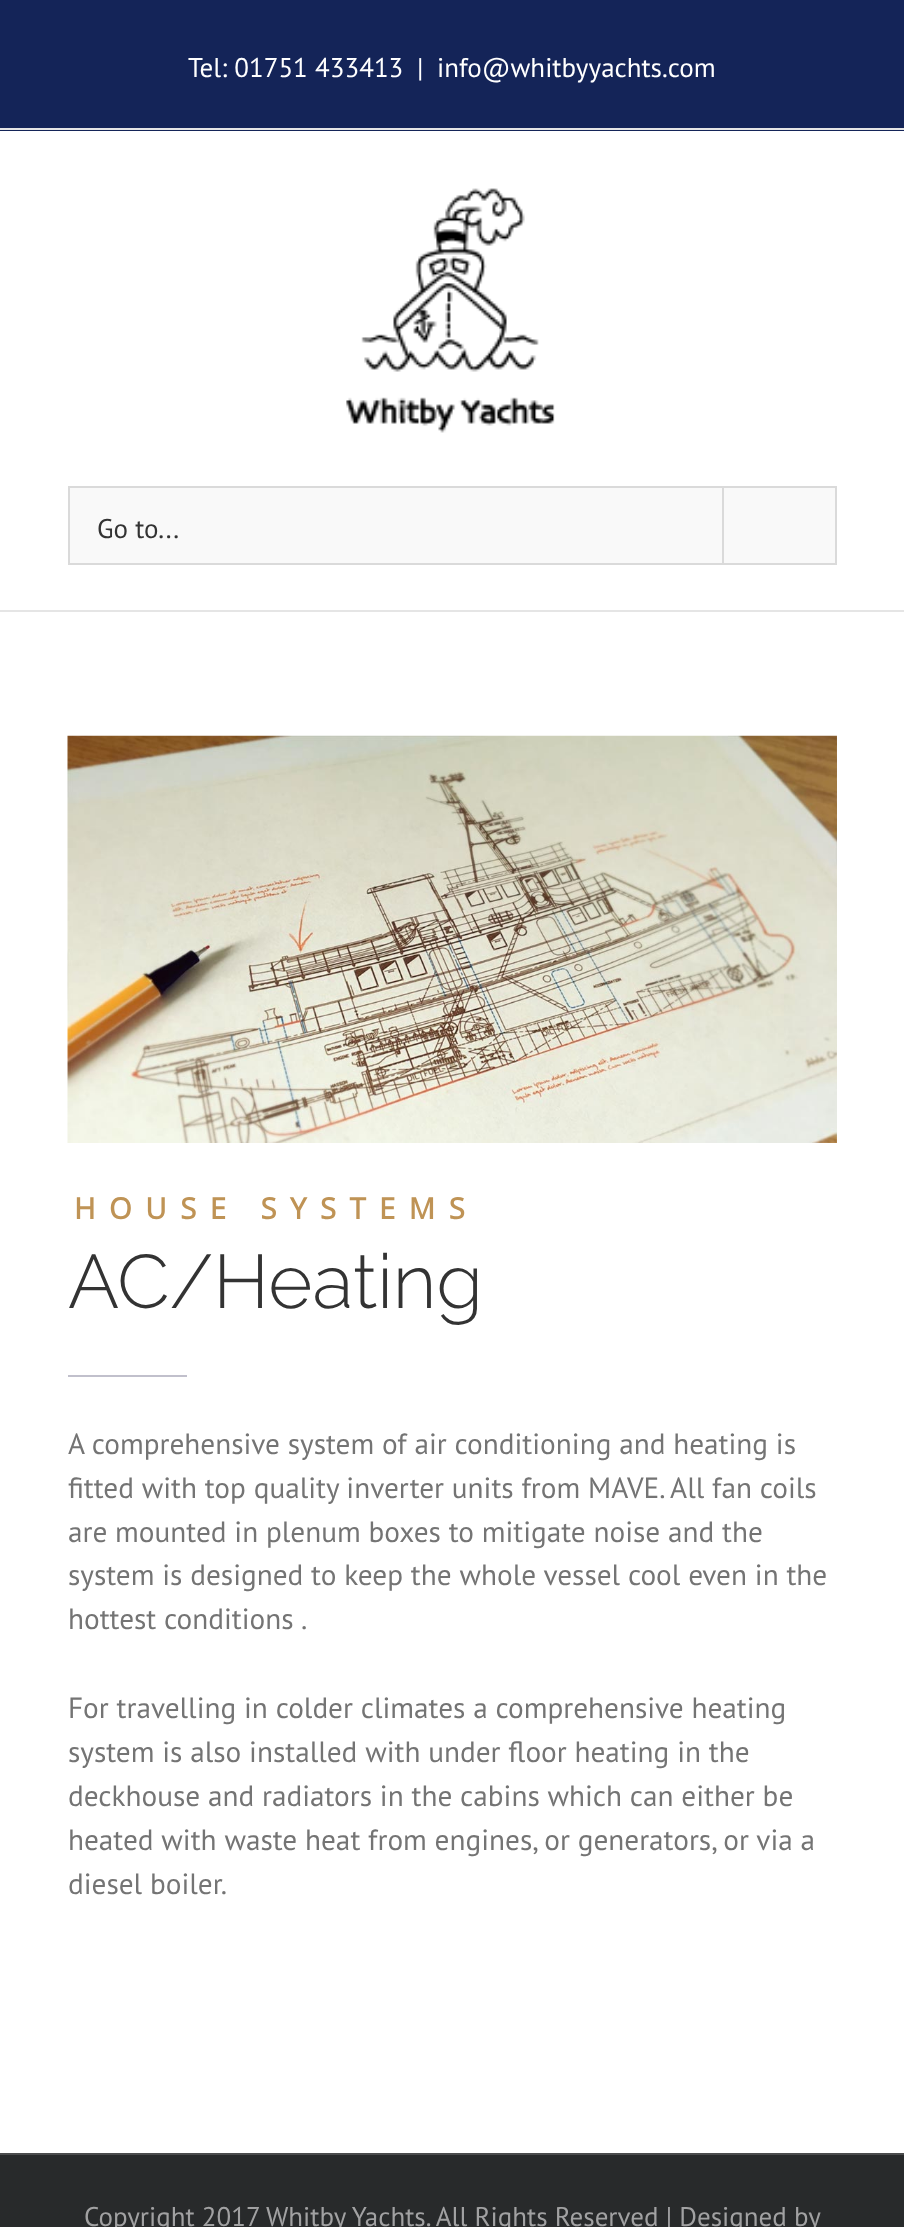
<svg xmlns="http://www.w3.org/2000/svg" xmlns:xlink="http://www.w3.org/1999/xlink" width="904" height="2227" viewBox="0 0 904 2227">
<style>
.cls-1{font:27px PT Sans;fill:#ffffff}
.cls-2{font:27px PT Sans;fill:#333333}
.cls-3{font:bold 29.25px Open Sans;letter-spacing:13.5px;fill:#bf9355}
.cls-4{font:100 75.75px Raleway;fill:#333333}
.cls-5{font:29.25px PT Sans;fill:#747474}
.cls-6{font:27px PT Sans;fill:#a1a1a2}
</style>
<rect width="100%" height="100%" fill="#ffffff"/>
<rect fill="#142458" x="0" y="0" width="904" height="131"/>
<rect fill="#e5e5e5" x="0" y="128" width="904" height="2"/>
<rect fill="#e5e5e5" x="0" y="610" width="904" height="2"/>
<image xlink:href="image0.png" x="346" y="188" width="209" height="245"/>
<rect fill="#f9f9f9" stroke="#dadada" stroke-width="2" x="69" y="487" width="767" height="77"/>
<rect fill="#dadada" x="722" y="488" width="2" height="75"/>
<image xlink:href="image1.png" x="67" y="735" width="770" height="408"/>
<rect fill="#c1c0cc" x="68" y="1375" width="119" height="2"/>
<rect fill="#282a2b" x="0" y="2155" width="904" height="72"/>
<rect fill="#4b4c4d" x="0" y="2153" width="904" height="2"/>
<text class="cls-1" x="188" y="77">Tel: 01751 433413</text>
<text class="cls-1" x="417" y="77">|</text>
<text class="cls-1" x="437" y="77">info@whitbyyachts.com</text>
<text class="cls-2" x="97" y="538">Go to...</text>
<text class="cls-3" x="74" y="1219">HOUSE SYSTEMS</text>
<text class="cls-4" x="68" y="1308">AC/Heating</text>
<text class="cls-5"><tspan x="68" y="1454">A comprehensive system of air conditioning and heating is</tspan><tspan x="68" y="1498">fitted with top quality inverter units from MAVE. All fan coils</tspan><tspan x="68" y="1542">are mounted in plenum boxes to mitigate noise and the</tspan><tspan x="68" y="1585">system is designed to keep the whole vessel cool even in the</tspan><tspan x="68" y="1629">hottest conditions .</tspan></text>
<text class="cls-5"><tspan x="68" y="1718">For travelling in colder climates a comprehensive heating</tspan><tspan x="68" y="1762">system is also installed with under floor heating in the</tspan><tspan x="68" y="1806">deckhouse and radiators in the cabins which can either be</tspan><tspan x="68" y="1850">heated with waste heat from engines, or generators, or via a</tspan><tspan x="68" y="1894">diesel boiler.</tspan></text>
<text class="cls-6" x="84" y="2226">Copyright 2017 Whitby Yachts. All Rights Reserved | Designed by</text>
</svg>
